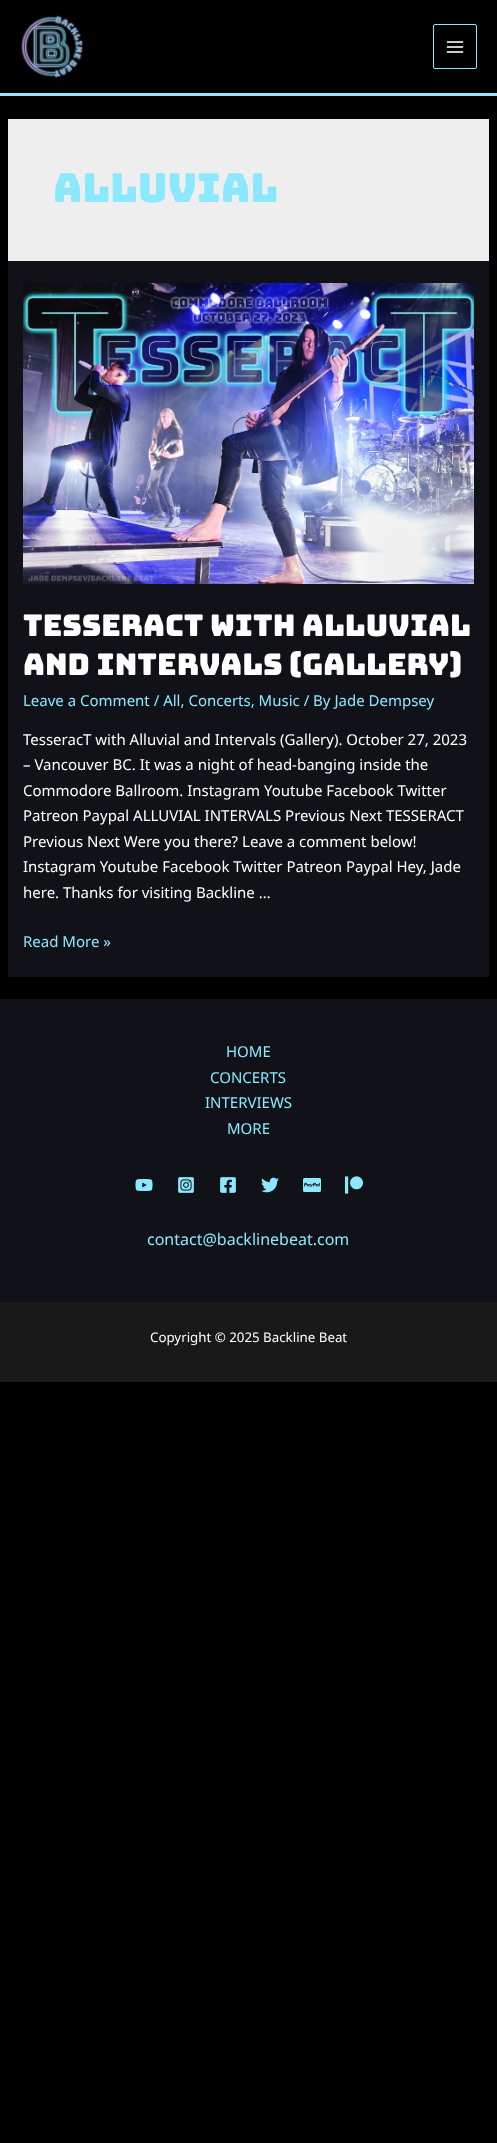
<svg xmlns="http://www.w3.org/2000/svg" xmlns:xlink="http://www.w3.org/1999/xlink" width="497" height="2143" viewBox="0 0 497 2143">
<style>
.cls-1{font:40px Bungee;fill:#8be8ff}
.cls-2{font:30px Bungee;fill:#ffffff}
.cls-3{font:15px Noto Sans;fill:#8be8ff}
.cls-4{font:15px Noto Sans;fill:#ffffff}
.cls-5{font:16px Noto Sans;fill:#8be8ff}
.cls-6{font:13.3px Noto Sans;fill:#ffffff}
</style>
<rect width="100%" height="100%" fill="#000000"/>
<rect fill="#8be8ff" x="0" y="93" width="497" height="3"/>
<image xlink:href="image0.png" x="21" y="15" width="62" height="63"/>
<rect fill="none" stroke="#8be8ff" x="433.5" y="24.5" width="43" height="44" rx="1.5"/>
<image xlink:href="image1.png" x="446" y="41" width="18" height="12"/>
<rect fill="#eeeeee" x="8" y="119" width="481" height="142"/>
<rect fill="#101218" x="8" y="261" width="481" height="716"/>
<image xlink:href="image2.png" x="23" y="283" width="451" height="301"/>
<rect fill="#101218" x="0" y="999" width="497" height="303"/>
<image xlink:href="image3.png" x="135" y="1179" width="18" height="12"/>
<image xlink:href="image4.png" x="178" y="1177" width="16" height="16"/>
<image xlink:href="image5.png" x="220" y="1177" width="16" height="16"/>
<image xlink:href="image6.png" x="261" y="1177" width="18" height="16"/>
<image xlink:href="image7.png" x="303" y="1178" width="18" height="14"/>
<image xlink:href="image8.png" x="345" y="1176" width="18" height="18"/>
<rect fill="#191919" x="0" y="1302" width="497" height="80"/>
<text class="cls-1" x="53" y="202">Alluvial</text>
<text class="cls-2"><tspan x="23" y="636">TESSERACT WITH ALLUVIAL</tspan><tspan x="23" y="675">AND INTERVALS (GALLERY)</tspan></text>
<text class="cls-3" x="23" y="706">Leave a Comment / All, Concerts, Music / By Jade Dempsey</text>
<text class="cls-4"><tspan x="23" y="745">TesseracT with Alluvial and Intervals (Gallery). October 27, 2023</tspan><tspan x="23" y="770">– Vancouver BC. It was a night of head-banging inside the</tspan><tspan x="23" y="796">Commodore Ballroom. Instagram Youtube Facebook Twitter</tspan><tspan x="23" y="821">Patreon Paypal ALLUVIAL INTERVALS Previous Next TESSERACT</tspan><tspan x="23" y="847">Previous Next Were you there? Leave a comment below!</tspan><tspan x="23" y="872">Instagram Youtube Facebook Twitter Patreon Paypal Hey, Jade</tspan><tspan x="23" y="898">here. Thanks for visiting Backline …</tspan></text>
<text class="cls-3" x="23" y="947">Read More »</text>
<text class="cls-3" x="226" y="1057">HOME</text>
<text class="cls-3" x="210" y="1083">CONCERTS</text>
<text class="cls-3" x="205" y="1108">INTERVIEWS</text>
<text class="cls-3" x="227" y="1134">MORE</text>
<text class="cls-5" x="147" y="1245">contact@backlinebeat.com</text>
<text class="cls-6" x="150" y="1342">Copyright © 2025 Backline Beat</text>
</svg>
